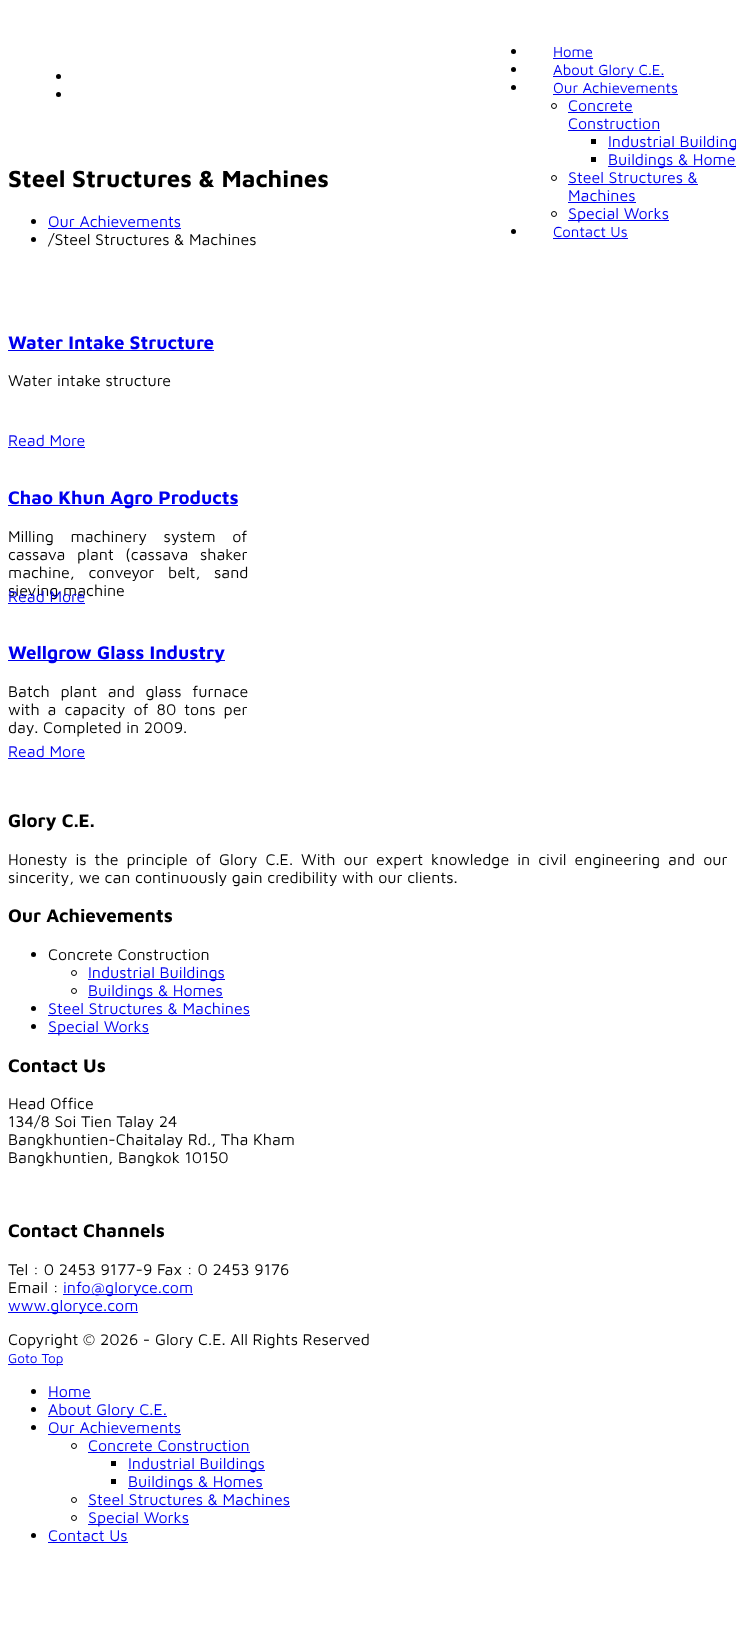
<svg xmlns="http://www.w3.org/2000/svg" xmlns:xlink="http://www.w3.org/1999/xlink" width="736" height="1647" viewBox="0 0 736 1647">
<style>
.cls-1{font:bold 24px Maven Pro;fill:#000000}
.cls-2{font:16px Maven Pro;fill:#0000ee}
.cls-3{font:16px Maven Pro;fill:#000000}
.cls-4{font:15px Maven Pro;fill:#0000ee}
.cls-5{font:bold 18.75px Maven Pro;fill:#0000ee}
.cls-6{font:bold 18.75px Maven Pro;fill:#000000}
.cls-7{font:13.5px Maven Pro;fill:#0000ee}
</style>
<rect width="100%" height="100%" fill="#ffffff"/>
<circle fill="#000000" cx="33.5" cy="221.5" r="2.5"/>
<rect fill="#0000ee" x="48" y="228" width="133" height="1"/>
<circle fill="#000000" cx="33.5" cy="239.5" r="2.5"/>
<circle fill="#000000" cx="58.5" cy="76.5" r="2.5"/>
<circle fill="#000000" cx="58.5" cy="94.5" r="2.5"/>
<circle fill="#000000" cx="513.5" cy="51.5" r="2.5"/>
<rect fill="#0000ee" x="553" y="58" width="40" height="1"/>
<circle fill="#000000" cx="513.5" cy="69.5" r="2.5"/>
<rect fill="#0000ee" x="553" y="76" width="111" height="1"/>
<circle fill="#000000" cx="513.5" cy="87.5" r="2.5"/>
<rect fill="#0000ee" x="553" y="94" width="125" height="1"/>
<circle fill="none" stroke="#000000" cx="554" cy="106" r="2.5"/>
<rect fill="#0000ee" x="568" y="112" width="65" height="1"/>
<rect fill="#0000ee" x="568" y="130" width="92" height="1"/>
<rect fill="#000000" x="591" y="139" width="5" height="5"/>
<rect fill="#0000ee" x="608" y="148" width="128" height="1"/>
<rect fill="#000000" x="591" y="157" width="5" height="5"/>
<rect fill="#0000ee" x="608" y="166" width="128" height="1"/>
<circle fill="none" stroke="#000000" cx="554" cy="178" r="2.5"/>
<rect fill="#0000ee" x="568" y="184" width="130" height="1"/>
<rect fill="#0000ee" x="568" y="202" width="68" height="1"/>
<circle fill="none" stroke="#000000" cx="554" cy="214" r="2.5"/>
<rect fill="#0000ee" x="568" y="220" width="101" height="1"/>
<circle fill="#000000" cx="513.5" cy="231.5" r="2.5"/>
<rect fill="#0000ee" x="553" y="238" width="75" height="1"/>
<rect fill="#0000ee" x="8" y="350" width="206" height="1"/>
<rect fill="#0000ee" x="8" y="447" width="77" height="1"/>
<rect fill="#0000ee" x="8" y="505" width="230" height="1"/>
<rect fill="#0000ee" x="8" y="603" width="77" height="1"/>
<rect fill="#0000ee" x="8" y="660" width="217" height="1"/>
<rect fill="#0000ee" x="8" y="758" width="77" height="1"/>
<circle fill="#000000" cx="33.5" cy="954.5" r="2.5"/>
<circle fill="none" stroke="#000000" cx="74" cy="973" r="2.5"/>
<rect fill="#0000ee" x="88" y="979" width="137" height="1"/>
<circle fill="none" stroke="#000000" cx="74" cy="991" r="2.5"/>
<rect fill="#0000ee" x="88" y="997" width="135" height="1"/>
<circle fill="#000000" cx="33.5" cy="1008.5" r="2.5"/>
<rect fill="#0000ee" x="48" y="1015" width="202" height="1"/>
<circle fill="#000000" cx="33.5" cy="1026.5" r="2.5"/>
<rect fill="#0000ee" x="48" y="1033" width="101" height="1"/>
<rect fill="#0000ee" x="63" y="1294" width="130" height="1"/>
<rect fill="#0000ee" x="8" y="1312" width="130" height="1"/>
<rect fill="#0000ee" x="8" y="1364" width="55" height="1"/>
<circle fill="#000000" cx="33.5" cy="1391.5" r="2.5"/>
<rect fill="#0000ee" x="48" y="1398" width="43" height="1"/>
<circle fill="#000000" cx="33.5" cy="1409.5" r="2.5"/>
<rect fill="#0000ee" x="48" y="1416" width="119" height="1"/>
<circle fill="#000000" cx="33.5" cy="1427.5" r="2.5"/>
<rect fill="#0000ee" x="48" y="1434" width="133" height="1"/>
<circle fill="none" stroke="#000000" cx="74" cy="1446" r="2.5"/>
<rect fill="#0000ee" x="88" y="1452" width="162" height="1"/>
<rect fill="#000000" x="111" y="1461" width="5" height="5"/>
<rect fill="#0000ee" x="128" y="1470" width="137" height="1"/>
<rect fill="#000000" x="111" y="1479" width="5" height="5"/>
<rect fill="#0000ee" x="128" y="1488" width="135" height="1"/>
<circle fill="none" stroke="#000000" cx="74" cy="1500" r="2.5"/>
<rect fill="#0000ee" x="88" y="1506" width="202" height="1"/>
<circle fill="none" stroke="#000000" cx="74" cy="1518" r="2.5"/>
<rect fill="#0000ee" x="88" y="1524" width="101" height="1"/>
<circle fill="#000000" cx="33.5" cy="1535.5" r="2.5"/>
<rect fill="#0000ee" x="48" y="1542" width="80" height="1"/>
<text class="cls-1" x="8" y="187">Steel Structures &amp; Machines</text>
<text class="cls-2" x="48" y="227">Our Achievements</text>
<text class="cls-3" x="48" y="245">/Steel Structures &amp; Machines</text>
<text class="cls-4"><tspan x="553" y="57">Home</tspan><tspan x="553" y="75">About Glory C.E.</tspan><tspan x="553" y="93">Our Achievements</tspan></text>
<text class="cls-2"><tspan x="568" y="111">Concrete</tspan><tspan x="568" y="129">Construction</tspan></text>
<text class="cls-2"><tspan x="608" y="147">Industrial Building</tspan><tspan x="608" y="165">Buildings &amp; Home</tspan></text>
<text class="cls-2"><tspan x="568" y="183">Steel Structures &amp;</tspan><tspan x="568" y="201">Machines</tspan><tspan x="568" y="219">Special Works</tspan></text>
<text class="cls-4" x="553" y="237">Contact Us</text>
<text class="cls-5" x="8" y="349">Water Intake Structure</text>
<text class="cls-3" x="8" y="386">Water intake structure</text>
<text class="cls-2" x="8" y="446">Read More</text>
<text class="cls-5" x="8" y="504">Chao Khun Agro Products</text>
<text class="cls-3"><tspan x="8" y="542" word-spacing="12">Milling machinery system of</tspan><tspan x="8" y="560" word-spacing="7">cassava plant (cassava shaker</tspan><tspan x="8" y="578" word-spacing="9">machine, conveyor belt, sand</tspan><tspan x="8" y="596">sieving machine</tspan></text>
<text class="cls-2" x="8" y="602">Read More</text>
<text class="cls-5" x="8" y="659">Wellgrow Glass Industry</text>
<text class="cls-3"><tspan x="8" y="697" word-spacing="6">Batch plant and glass furnace</tspan><tspan x="8" y="715" word-spacing="3.4">with a capacity of 80 tons per</tspan><tspan x="8" y="733">day. Completed in 2009.</tspan></text>
<text class="cls-2" x="8" y="757">Read More</text>
<text class="cls-6" x="8" y="827">Glory C.E.</text>
<text class="cls-3"><tspan x="8" y="865" word-spacing="3.4">Honesty is the principle of Glory C.E. With our expert knowledge in civil engineering and our</tspan><tspan x="8" y="883">sincerity, we can continuously gain credibility with our clients.</tspan></text>
<text class="cls-6" x="8" y="922">Our Achievements</text>
<text class="cls-3" x="48" y="960">Concrete Construction</text>
<text class="cls-2"><tspan x="88" y="978">Industrial Buildings</tspan><tspan x="88" y="996">Buildings &amp; Homes</tspan></text>
<text class="cls-2"><tspan x="48" y="1014">Steel Structures &amp; Machines</tspan><tspan x="48" y="1032">Special Works</tspan></text>
<text class="cls-6" x="8" y="1072">Contact Us</text>
<text class="cls-3"><tspan x="8" y="1109">Head Office</tspan><tspan x="8" y="1127">134/8 Soi Tien Talay 24</tspan><tspan x="8" y="1145">Bangkhuntien-Chaitalay Rd., Tha Kham</tspan><tspan x="8" y="1163">Bangkhuntien, Bangkok 10150</tspan></text>
<text class="cls-6" x="8" y="1237">Contact Channels</text>
<text class="cls-3"><tspan x="8" y="1275">Tel : 0 2453 9177-9 Fax : 0 2453 9176</tspan><tspan x="8" y="1293">Email :</tspan></text>
<text class="cls-2" x="63" y="1293">info@gloryce.com</text>
<text class="cls-2" x="8" y="1311">www.gloryce.com</text>
<text class="cls-3" x="8" y="1345">Copyright © 2026 - Glory C.E. All Rights Reserved</text>
<text class="cls-7" x="8" y="1363">Goto Top</text>
<text class="cls-2"><tspan x="48" y="1397">Home</tspan><tspan x="48" y="1415">About Glory C.E.</tspan><tspan x="48" y="1433">Our Achievements</tspan></text>
<text class="cls-2" x="88" y="1451">Concrete Construction</text>
<text class="cls-2"><tspan x="128" y="1469">Industrial Buildings</tspan><tspan x="128" y="1487">Buildings &amp; Homes</tspan></text>
<text class="cls-2"><tspan x="88" y="1505">Steel Structures &amp; Machines</tspan><tspan x="88" y="1523">Special Works</tspan></text>
<text class="cls-2" x="48" y="1541">Contact Us</text>
</svg>
